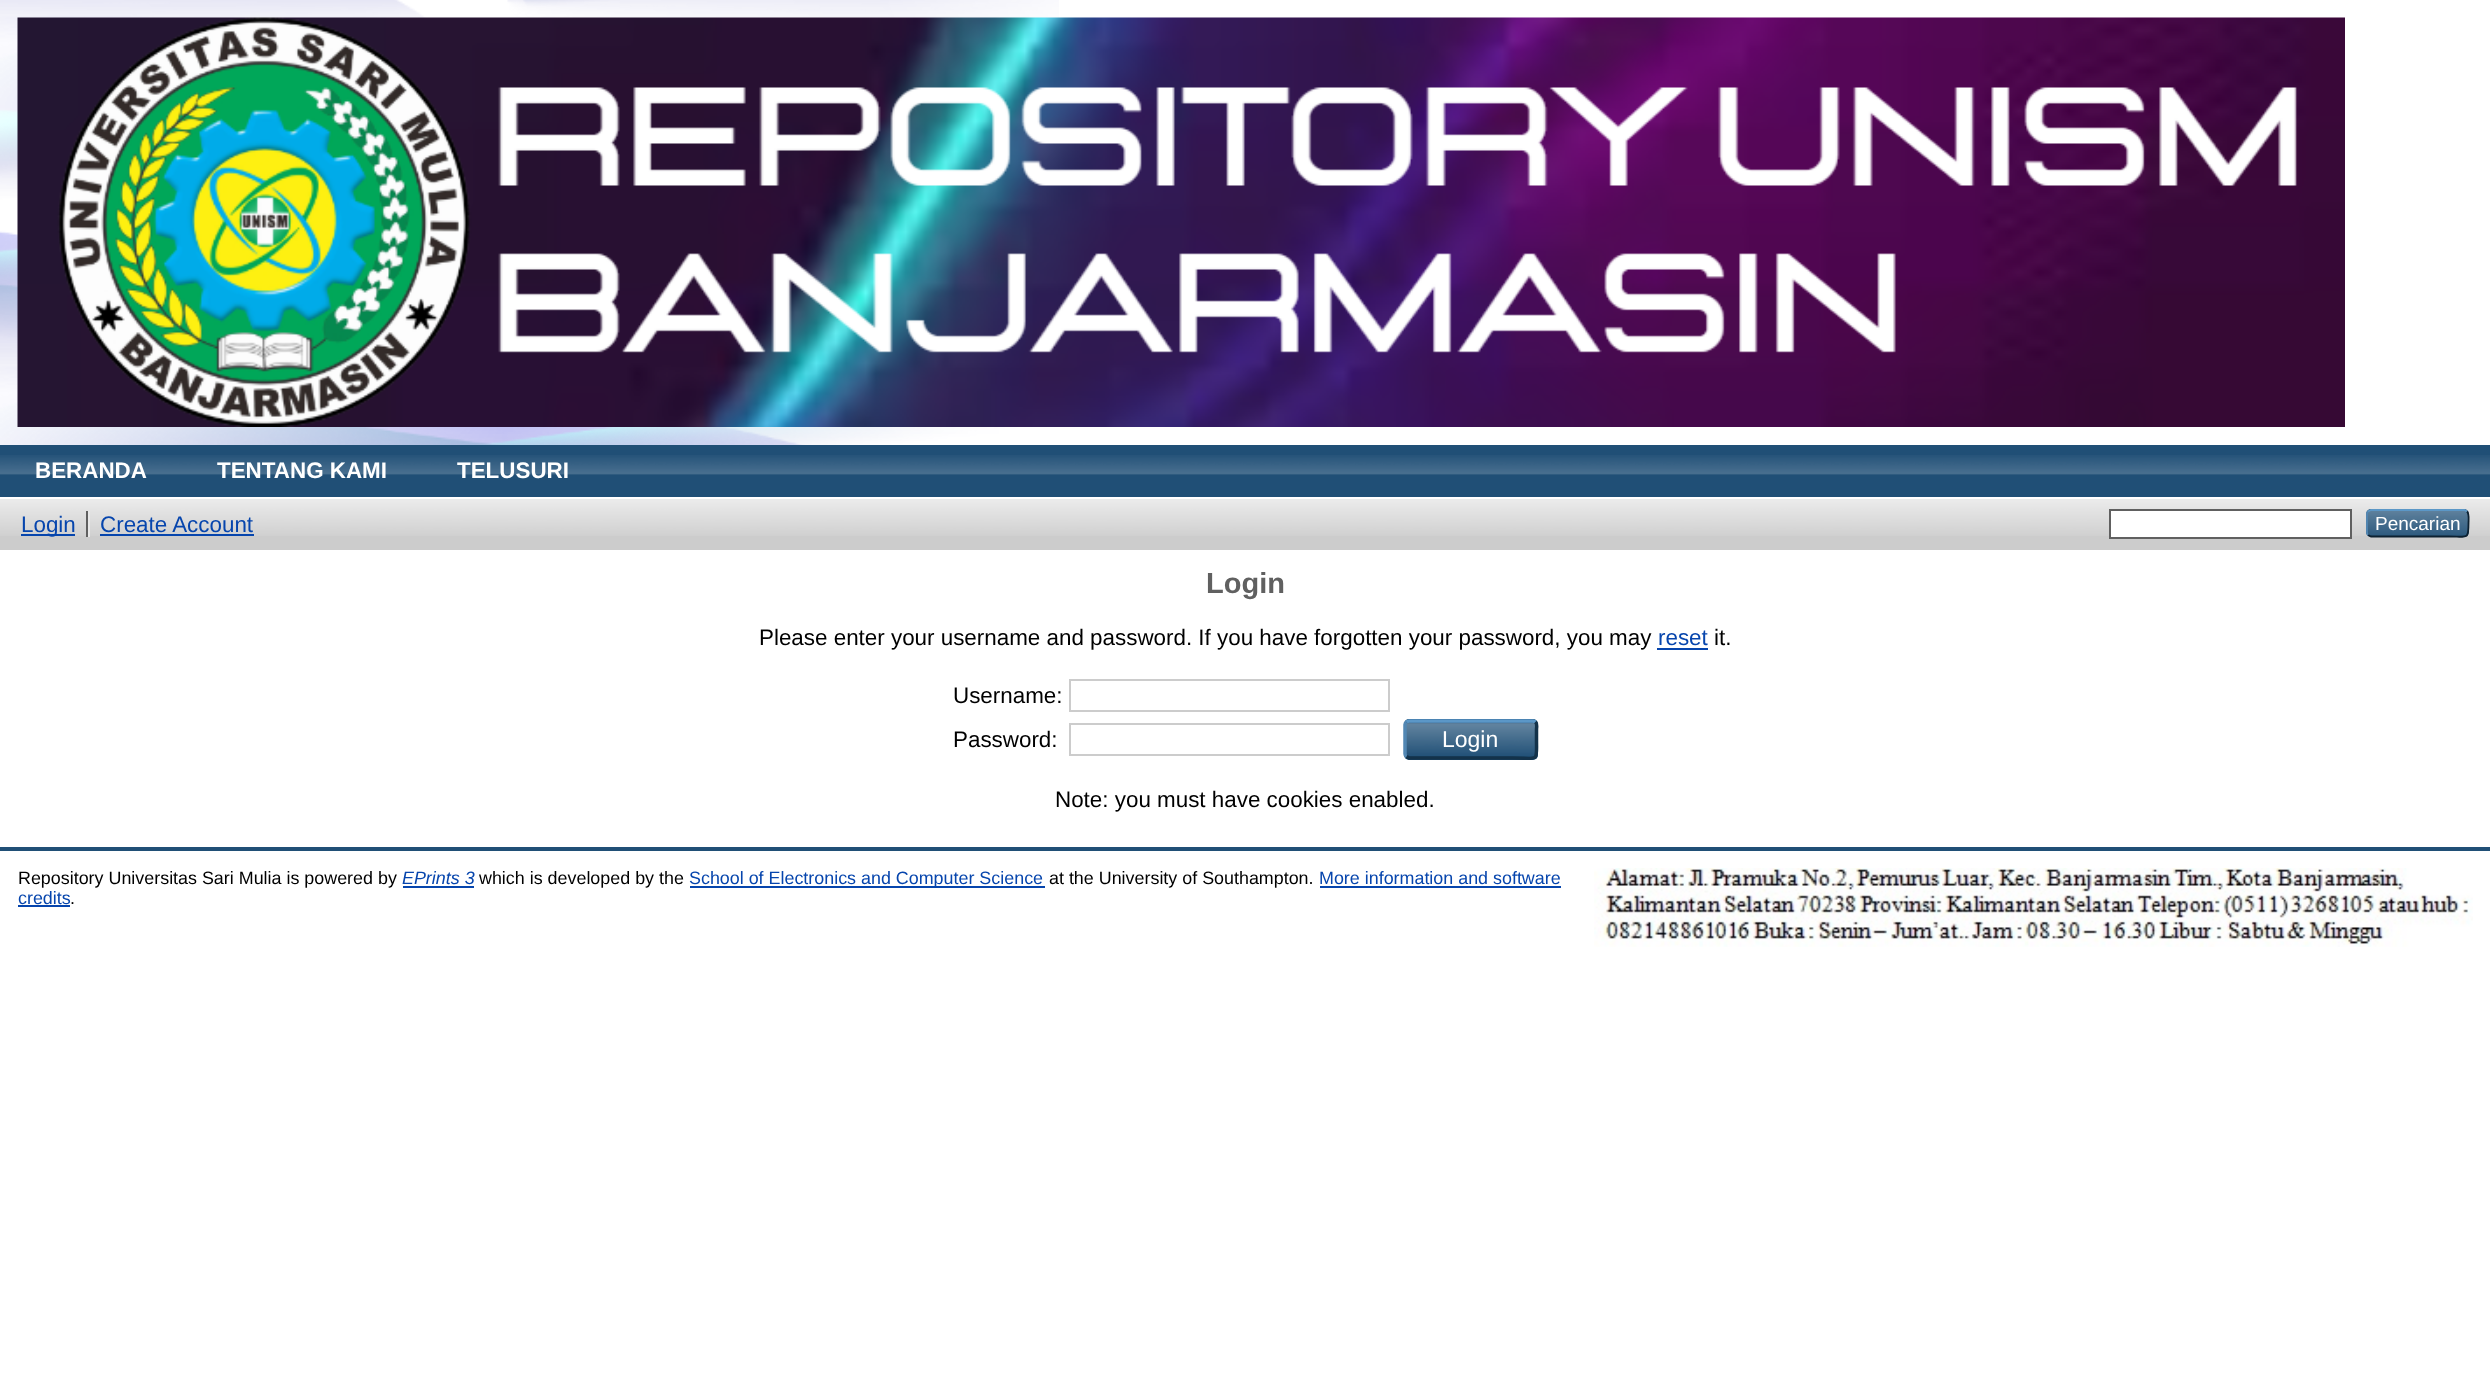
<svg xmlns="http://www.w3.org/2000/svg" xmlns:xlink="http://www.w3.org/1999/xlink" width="2490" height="1384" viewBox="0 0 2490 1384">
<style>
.cls-1{font:bold 22.4px Liberation Sans;fill:#ffffff}
.cls-2{font:22.4px Liberation Sans;fill:#0645ad}
.cls-3{font:19px Liberation Sans;fill:#ffffff}
.cls-4{font:bold 29px Liberation Sans;fill:#606060}
.cls-5{font:22.4px Liberation Sans;fill:#000000}
.cls-6{font:23px Liberation Sans;fill:#ffffff}
.cls-7{font:17.9px Liberation Sans;fill:#000000}
.cls-8{font:italic 17.9px Liberation Sans;fill:#0645ad}
.cls-9{font:17.9px Liberation Sans;fill:#0645ad}
</style>
<rect width="100%" height="100%" fill="#ffffff"/>
<image xlink:href="image0.png" x="0" y="0" width="1059" height="445"/>
<image xlink:href="image1.png" x="17" y="17" width="2328" height="410"/>
<rect fill="#204f76" x="0" y="445" width="2490" height="52"/>
<image xlink:href="image2.png" x="0" y="455" width="2490" height="20"/>
<rect fill="#cccccc" x="0" y="499" width="2490" height="51"/>
<image xlink:href="image3.png" x="0" y="499" width="2490" height="37"/>
<rect fill="#606060" x="86" y="511" width="2" height="26"/>
<rect fill="#0645ad" x="21" y="534" width="54" height="2"/>
<rect fill="#e8e8e8" x="88" y="511" width="2" height="26"/>
<rect fill="#0645ad" x="100" y="534" width="154" height="2"/>
<rect fill="#ffffff" stroke="#606060" stroke-width="2" x="2110" y="510" width="241" height="28"/>
<rect fill="#1f4f76" x="2366" y="509" width="103" height="28" rx="5"/>
<image xlink:href="image4.png" x="2366" y="509" width="103" height="28"/>
<path fill="none" stroke="#5b97c7" stroke-width="1.8" d="M2368 511.5L2371 510H2464.5L2467 511.5"/>
<path fill="none" stroke="#0d2131" stroke-width="1.8" d="M2467 511.5C2469.5 514 2468.5 520 2468.5 523C2468.5 540 2468 536.5 2448.5 536.5H2371L2368 535"/>
<path fill="none" stroke="#5287b3" stroke-width="1.8" d="M2368 535C2367.5 534.5 2367 533 2367 532V514.5C2367 513.5 2367.5 512 2368 511.5"/>
<rect fill="#0645ad" x="1657" y="648" width="51" height="2"/>
<rect fill="none" stroke="#cccccc" stroke-width="2" x="1070" y="680" width="319" height="31"/>
<rect fill="none" stroke="#cccccc" stroke-width="2" x="1070" y="724" width="319" height="31"/>
<rect fill="#1f4f76" x="1404" y="719" width="134" height="41" rx="5"/>
<image xlink:href="image5.png" x="1406" y="722" width="132" height="34"/>
<path fill="none" stroke="#5b97c7" stroke-width="3.5" d="M1406.5 722C1407 721.5 1408 721 1409 721H1533C1534 721 1535 721.5 1535.5 722"/>
<path fill="none" stroke="#13324a" stroke-width="3.5" d="M1535.5 722C1537.5 724 1536.5 727.5 1536.5 729.5V739.5C1536.5 763 1539.5 758 1512.5 758H1409L1406.5 756.5"/>
<path fill="none" stroke="#5287b3" stroke-width="3.5" d="M1406.5 756.5C1405.5 756 1405 755 1405 754V724.5C1405 723.5 1405.5 722.5 1406.5 722"/>
<rect fill="#204f76" x="0" y="847" width="2490" height="4"/>
<rect fill="#0645ad" x="403" y="886" width="71" height="2"/>
<rect fill="#0645ad" x="690" y="886" width="355" height="2"/>
<rect fill="#0645ad" x="1320" y="886" width="241" height="2"/>
<rect fill="#0645ad" x="18" y="905" width="52" height="2"/>
<image xlink:href="image6.png" x="1594" y="868" width="879" height="79"/>
<text class="cls-1" x="35" y="478">BERANDA</text>
<text class="cls-1" x="217" y="478">TENTANG KAMI</text>
<text class="cls-1" x="457" y="478">TELUSURI</text>
<text class="cls-2" x="21" y="532">Login</text>
<text class="cls-2" x="100" y="532">Create Account</text>
<text class="cls-3" x="2375" y="530">Pencarian</text>
<text class="cls-4" x="1206" y="593">Login</text>
<text class="cls-5" x="759" y="645">Please enter your username and password. If you have forgotten your password, you may</text>
<text class="cls-2" x="1658" y="645">reset</text>
<text class="cls-5" x="1714" y="645">it.</text>
<text class="cls-5"><tspan x="953" y="703">Username:</tspan><tspan x="953" y="747">Password:</tspan></text>
<text class="cls-6" x="1442" y="747">Login</text>
<text class="cls-5" x="1055" y="807">Note: you must have cookies enabled.</text>
<text class="cls-7" x="18" y="884">Repository Universitas Sari Mulia is powered by</text>
<text class="cls-8" x="402" y="884">EPrints 3</text>
<text class="cls-7" x="479" y="884">which is developed by the</text>
<text class="cls-9" x="689" y="884">School of Electronics and Computer Science</text>
<text class="cls-7" x="1049" y="884">at the University of Southampton.</text>
<text class="cls-9" x="1319" y="884">More information and software</text>
<text class="cls-9" x="18" y="904">credits</text>
<text class="cls-7" x="70" y="904">.</text>
</svg>
